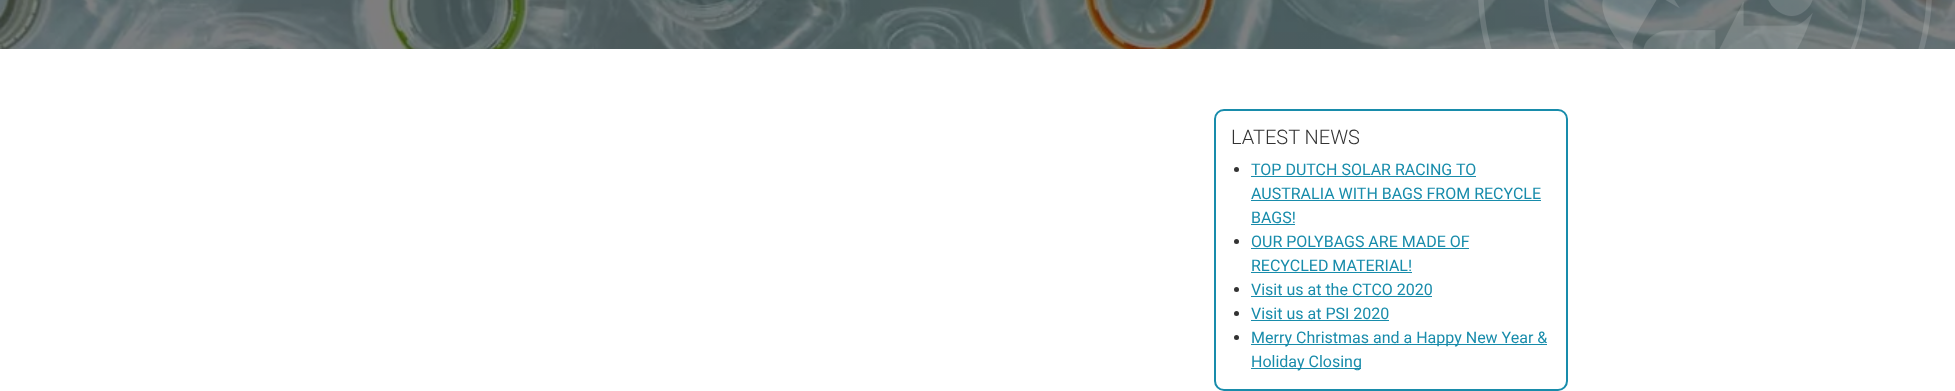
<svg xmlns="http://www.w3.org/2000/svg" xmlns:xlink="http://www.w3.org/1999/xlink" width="1955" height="391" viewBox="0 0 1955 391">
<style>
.cls-1{font:300 20px Roboto;fill:#333333}
.cls-2{font:16px Roboto;fill:#188cab}
</style>
<rect width="100%" height="100%" fill="#ffffff"/>
<image xlink:href="image0.png" x="0" y="0" width="1955" height="49"/>
<rect fill="none" stroke="#188cab" stroke-width="2" x="1215" y="110" width="352" height="280" rx="9"/>
<circle fill="#333333" cx="1236.5" cy="169.5" r="2.5"/>
<rect fill="#188cab" x="1251" y="176" width="225" height="1"/>
<rect fill="#188cab" x="1251" y="200" width="290" height="1"/>
<rect fill="#188cab" x="1251" y="224" width="44" height="1"/>
<circle fill="#333333" cx="1236.5" cy="241.5" r="2.5"/>
<rect fill="#188cab" x="1251" y="248" width="218" height="1"/>
<rect fill="#188cab" x="1251" y="272" width="161" height="1"/>
<circle fill="#333333" cx="1236.5" cy="289.5" r="2.5"/>
<rect fill="#188cab" x="1251" y="296" width="181" height="1"/>
<circle fill="#333333" cx="1236.5" cy="313.5" r="2.5"/>
<rect fill="#188cab" x="1251" y="320" width="138" height="1"/>
<circle fill="#333333" cx="1236.5" cy="337.5" r="2.5"/>
<rect fill="#188cab" x="1251" y="344" width="296" height="1"/>
<rect fill="#188cab" x="1251" y="368" width="110" height="1"/>
<text class="cls-1" x="1231" y="144">LATEST NEWS</text>
<text class="cls-2"><tspan x="1251" y="175">TOP DUTCH SOLAR RACING TO</tspan><tspan x="1251" y="199">AUSTRALIA WITH BAGS FROM RECYCLE</tspan><tspan x="1251" y="223">BAGS!</tspan><tspan x="1251" y="247">OUR POLYBAGS ARE MADE OF</tspan><tspan x="1251" y="271">RECYCLED MATERIAL!</tspan><tspan x="1251" y="295">Visit us at the CTCO 2020</tspan><tspan x="1251" y="319">Visit us at PSI 2020</tspan><tspan x="1251" y="343">Merry Christmas and a Happy New Year &amp;</tspan><tspan x="1251" y="367">Holiday Closing</tspan></text>
</svg>
